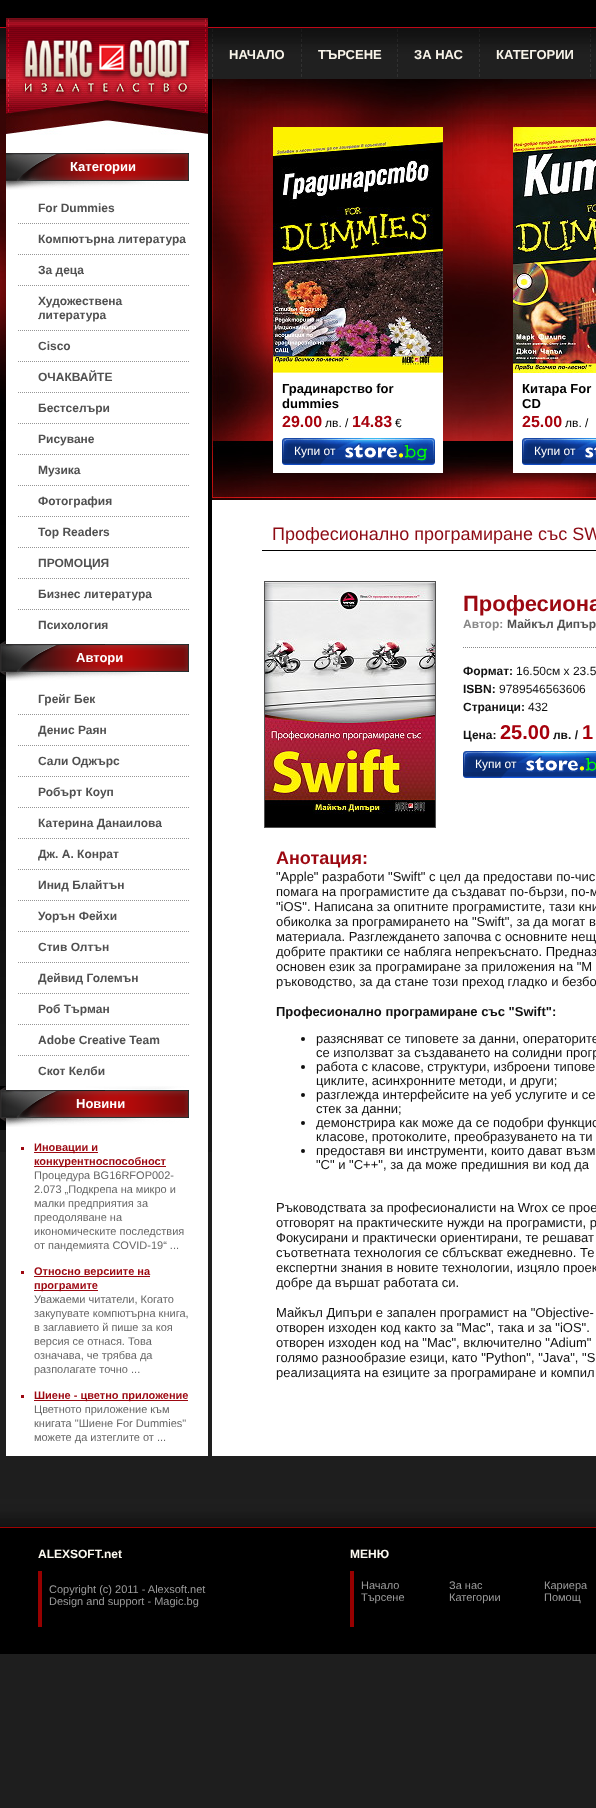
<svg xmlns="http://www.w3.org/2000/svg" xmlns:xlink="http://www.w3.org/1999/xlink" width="596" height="1808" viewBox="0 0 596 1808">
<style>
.cls-1{font:bold 13px Liberation Sans;fill:#f8f4e9}
.cls-2{font:bold 13px Liberation Sans;fill:#ffffff}
.cls-3{font:bold 12px Liberation Sans;fill:#505050}
.cls-4{font:bold 11px Liberation Sans;fill:#9c0811}
.cls-5{font:11px Liberation Sans;fill:#666666}
.cls-6{font:bold 13px Liberation Sans;fill:#000000}
.cls-7{font:bold 16px Liberation Sans;fill:#a7010c}
.cls-8{font:12px Liberation Sans;fill:#000000}
.cls-9{font:12px Liberation Sans;fill:#ffffff}
.cls-10{font:18px Liberation Sans;fill:#8d0b14}
.cls-11{font:bold 22px Liberation Sans;fill:#9c0811}
.cls-12{font:bold 12px Liberation Sans;fill:#888888}
.cls-13{font:bold 12px Liberation Sans;fill:#111111}
.cls-14{font:12px Liberation Sans;fill:#111111}
.cls-15{font:bold 20px Liberation Sans;fill:#a7010c}
.cls-16{font:bold 18px Liberation Sans;fill:#9c0811}
.cls-17{font:13px Liberation Sans;fill:#111111}
.cls-18{font:bold 13px Liberation Sans;fill:#111111}
.cls-19{font:bold 12px Liberation Sans;fill:#fcf9f0}
.cls-20{font:11px Liberation Sans;fill:#9c9c9c}
</style>
<rect width="100%" height="100%" fill="#1e1e1e"/>
<image xlink:href="image0.png" x="0" y="0" width="596" height="1152"/>
<image xlink:href="image1.png" x="6" y="18" width="202" height="61"/>
<image xlink:href="image2.png" x="212" y="29" width="1" height="48"/>
<image xlink:href="image2.png" x="301" y="29" width="1" height="48"/>
<image xlink:href="image2.png" x="397" y="29" width="1" height="48"/>
<image xlink:href="image2.png" x="479" y="29" width="1" height="48"/>
<image xlink:href="image2.png" x="590" y="29" width="1" height="48"/>
<image xlink:href="image3.png" x="0" y="79" width="6" height="352"/>
<rect fill="#ffffff" x="6" y="135" width="202" height="1321"/>
<image xlink:href="image4.png" x="6" y="79" width="202" height="56"/>
<image xlink:href="image5.png" x="6" y="149" width="183" height="41"/>
<path fill="none" stroke="#969696" stroke-dasharray="1 1" d="M18 223.5H189"/>
<path fill="none" stroke="#969696" stroke-dasharray="1 1" d="M18 254.5H189"/>
<path fill="none" stroke="#969696" stroke-dasharray="1 1" d="M18 285.5H189"/>
<path fill="none" stroke="#969696" stroke-dasharray="1 1" d="M18 330.5H189"/>
<path fill="none" stroke="#969696" stroke-dasharray="1 1" d="M18 361.5H189"/>
<path fill="none" stroke="#969696" stroke-dasharray="1 1" d="M18 392.5H189"/>
<path fill="none" stroke="#969696" stroke-dasharray="1 1" d="M18 423.5H189"/>
<path fill="none" stroke="#969696" stroke-dasharray="1 1" d="M18 454.5H189"/>
<path fill="none" stroke="#969696" stroke-dasharray="1 1" d="M18 485.5H189"/>
<path fill="none" stroke="#969696" stroke-dasharray="1 1" d="M18 516.5H189"/>
<path fill="none" stroke="#969696" stroke-dasharray="1 1" d="M18 547.5H189"/>
<path fill="none" stroke="#969696" stroke-dasharray="1 1" d="M18 578.5H189"/>
<path fill="none" stroke="#969696" stroke-dasharray="1 1" d="M18 609.5H189"/>
<image xlink:href="image6.png" x="0" y="640" width="6" height="36"/>
<image xlink:href="image5.png" x="6" y="640" width="183" height="41"/>
<path fill="none" stroke="#969696" stroke-dasharray="1 1" d="M18 714.5H189"/>
<path fill="none" stroke="#969696" stroke-dasharray="1 1" d="M18 745.5H189"/>
<path fill="none" stroke="#969696" stroke-dasharray="1 1" d="M18 776.5H189"/>
<path fill="none" stroke="#969696" stroke-dasharray="1 1" d="M18 807.5H189"/>
<path fill="none" stroke="#969696" stroke-dasharray="1 1" d="M18 838.5H189"/>
<path fill="none" stroke="#969696" stroke-dasharray="1 1" d="M18 869.5H189"/>
<path fill="none" stroke="#969696" stroke-dasharray="1 1" d="M18 900.5H189"/>
<path fill="none" stroke="#969696" stroke-dasharray="1 1" d="M18 931.5H189"/>
<path fill="none" stroke="#969696" stroke-dasharray="1 1" d="M18 962.5H189"/>
<path fill="none" stroke="#969696" stroke-dasharray="1 1" d="M18 993.5H189"/>
<path fill="none" stroke="#969696" stroke-dasharray="1 1" d="M18 1024.5H189"/>
<path fill="none" stroke="#969696" stroke-dasharray="1 1" d="M18 1055.5H189"/>
<image xlink:href="image7.png" x="0" y="1086" width="6" height="44"/>
<image xlink:href="image5.png" x="6" y="1086" width="183" height="41"/>
<rect fill="#9c0811" x="21" y="1147" width="3" height="3"/>
<rect fill="#9c0811" x="34" y="1152" width="64" height="1"/>
<rect fill="#9c0811" x="34" y="1166" width="132" height="1"/>
<rect fill="#9c0811" x="21" y="1271" width="3" height="3"/>
<rect fill="#9c0811" x="34" y="1276" width="116" height="1"/>
<rect fill="#9c0811" x="34" y="1290" width="64" height="1"/>
<rect fill="#9c0811" x="21" y="1395" width="3" height="3"/>
<rect fill="#9c0811" x="34" y="1400" width="154" height="1"/>
<rect fill="#ffffff" x="212" y="500" width="384" height="956"/>
<image xlink:href="image8.png" x="212" y="79" width="384" height="420"/>
<image xlink:href="image9.png" x="273" y="127" width="170" height="246"/>
<rect fill="#ffffff" x="273" y="373" width="170" height="100"/>
<image xlink:href="image10.png" x="282" y="438" width="60" height="27"/>
<image xlink:href="image11.png" x="342" y="438" width="93" height="27"/>
<image xlink:href="image12.png" x="513" y="127" width="83" height="246"/>
<rect fill="#ffffff" x="513" y="373" width="83" height="100"/>
<image xlink:href="image10.png" x="522" y="438" width="60" height="27"/>
<image xlink:href="image13.png" x="582" y="438" width="14" height="27"/>
<image xlink:href="image14.png" x="212" y="499" width="384" height="1"/>
<rect fill="#000000" x="262" y="550" width="334" height="1"/>
<rect fill="none" stroke="#505050" x="264.5" y="581.5" width="171" height="246"/>
<image xlink:href="image15.png" x="265" y="582" width="170" height="245"/>
<path fill="none" stroke="#888888" stroke-dasharray="1 1" d="M463 647.5H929"/>
<image xlink:href="image10.png" x="463" y="751" width="60" height="27"/>
<image xlink:href="image16.png" x="523" y="751" width="73" height="27"/>
<circle fill="#111111" cx="303" cy="1039" r="2"/>
<circle fill="#111111" cx="303" cy="1067" r="2"/>
<circle fill="#111111" cx="303" cy="1095" r="2"/>
<circle fill="#111111" cx="303" cy="1123" r="2"/>
<circle fill="#111111" cx="303" cy="1151" r="2"/>
<rect fill="#000000" x="0" y="1528" width="596" height="126"/>
<image xlink:href="image17.png" x="0" y="1499" width="596" height="29"/>
<rect fill="#970000" x="38" y="1571" width="4" height="56"/>
<rect fill="#970000" x="350" y="1571" width="4" height="56"/>
<text class="cls-1" x="229" y="59">НАЧАЛО</text>
<text class="cls-1" x="318" y="59">ТЪРСЕНЕ</text>
<text class="cls-1" x="414" y="59">ЗА НАС</text>
<text class="cls-1" x="496" y="59">КАТЕГОРИИ</text>
<text class="cls-2" x="70" y="171">Категории</text>
<text class="cls-3" x="38" y="212">For Dummies</text>
<text class="cls-3" x="38" y="243">Компютърна литература</text>
<text class="cls-3" x="38" y="274">За деца</text>
<text class="cls-3"><tspan x="38" y="305">Художествена</tspan><tspan x="38" y="319">литература</tspan></text>
<text class="cls-3" x="38" y="350">Cisco</text>
<text class="cls-3" x="38" y="381">ОЧАКВАЙТЕ</text>
<text class="cls-3" x="38" y="412">Бестселъри</text>
<text class="cls-3" x="38" y="443">Рисуване</text>
<text class="cls-3" x="38" y="474">Музика</text>
<text class="cls-3" x="38" y="505">Фотография</text>
<text class="cls-3" x="38" y="536">Top Readers</text>
<text class="cls-3" x="38" y="567">ПРОМОЦИЯ</text>
<text class="cls-3" x="38" y="598">Бизнес литература</text>
<text class="cls-3" x="38" y="629">Психология</text>
<text class="cls-2" x="76" y="662">Автори</text>
<text class="cls-3" x="38" y="703">Грейг Бек</text>
<text class="cls-3" x="38" y="734">Денис Раян</text>
<text class="cls-3" x="38" y="765">Сали Оджърс</text>
<text class="cls-3" x="38" y="796">Робърт Коуп</text>
<text class="cls-3" x="38" y="827">Катерина Данаилова</text>
<text class="cls-3" x="38" y="858">Дж. А. Конрат</text>
<text class="cls-3" x="38" y="889">Инид Блайтън</text>
<text class="cls-3" x="38" y="920">Уорън Фейхи</text>
<text class="cls-3" x="38" y="951">Стив Олтън</text>
<text class="cls-3" x="38" y="982">Дейвид Големън</text>
<text class="cls-3" x="38" y="1013">Роб Търман</text>
<text class="cls-3" x="38" y="1044">Adobe Creative Team</text>
<text class="cls-3" x="38" y="1075">Скот Келби</text>
<text class="cls-2" x="76" y="1108">Новини</text>
<text class="cls-4"><tspan x="34" y="1151">Иновации и</tspan><tspan x="34" y="1165">конкурентноспособност</tspan></text>
<text class="cls-5"><tspan x="34" y="1179">Процедура BG16RFOP002-</tspan><tspan x="34" y="1193">2.073 „Подкрепа на микро и</tspan><tspan x="34" y="1207">малки предприятия за</tspan><tspan x="34" y="1221">преодоляване на</tspan><tspan x="34" y="1235">икономическите последствия</tspan><tspan x="34" y="1249">от пандемията COVID-19“ ...</tspan></text>
<text class="cls-4"><tspan x="34" y="1275">Относно версиите на</tspan><tspan x="34" y="1289">програмите</tspan></text>
<text class="cls-5"><tspan x="34" y="1303">Уважаеми читатели, Когато</tspan><tspan x="34" y="1317">закупувате компютърна книга,</tspan><tspan x="34" y="1331">в заглавието й пише за коя</tspan><tspan x="34" y="1345">версия се отнася. Това</tspan><tspan x="34" y="1359">означава, че трябва да</tspan><tspan x="34" y="1373">разполагате точно ...</tspan></text>
<text class="cls-4" x="34" y="1399">Шиене - цветно приложение</text>
<text class="cls-5"><tspan x="34" y="1413">Цветното приложение към</tspan><tspan x="34" y="1427">книгата "Шиене For Dummies"</tspan><tspan x="34" y="1441">можете да изтеглите от ...</tspan></text>
<text class="cls-6"><tspan x="282" y="393">Градинарство for</tspan><tspan x="282" y="408">dummies</tspan></text>
<text class="cls-7" x="282" y="427">29.00</text>
<text class="cls-8" x="325" y="427">лв. /</text>
<text class="cls-7" x="352" y="427">14.83</text>
<text class="cls-8" x="395" y="427">€</text>
<text class="cls-9" x="294" y="455">Купи от</text>
<text class="cls-6"><tspan x="522" y="393">Китара For</tspan><tspan x="522" y="408">CD</tspan></text>
<text class="cls-7" x="522" y="427">25.00</text>
<text class="cls-8" x="565" y="427">лв. /</text>
<text class="cls-9" x="534" y="455">Купи от</text>
<text class="cls-10" x="272" y="540">Професионално програмиране със SW</text>
<text class="cls-11" x="463" y="611">Професиона</text>
<text class="cls-12" x="463" y="628">Автор:</text>
<text class="cls-3" x="507" y="628">Майкъл Дипър</text>
<text class="cls-13" x="463" y="675">Формат:</text>
<text class="cls-14" x="516" y="675">16.50см x 23.5</text>
<text class="cls-13" x="463" y="693">ISBN:</text>
<text class="cls-14" x="499" y="693">9789546563606</text>
<text class="cls-13" x="463" y="711">Страници:</text>
<text class="cls-14" x="528" y="711">432</text>
<text class="cls-13" x="463" y="739">Цена:</text>
<text class="cls-15" x="500" y="739">25.00</text>
<text class="cls-13" x="553" y="739">лв. /</text>
<text class="cls-15" x="582" y="739">1</text>
<text class="cls-9" x="475" y="768">Купи от</text>
<text class="cls-16" x="276" y="864">Анотация:</text>
<text class="cls-17"><tspan x="276" y="881">"Apple" разработи "Swift" с цел да предостави по-чис</tspan><tspan x="276" y="896">помага на програмистите да създават по-бързи, по-м</tspan><tspan x="276" y="911">"iOS". Написана за опитните програмистите, тази кни</tspan><tspan x="276" y="926">обиколка за програмирането на "Swift", за да могат в</tspan><tspan x="276" y="941">материала. Разглеждането започва с основните нещ</tspan><tspan x="276" y="956">добрите практики се набляга непрекъснато. Предназ</tspan><tspan x="276" y="971">основен език за програмиране за приложения на "M</tspan><tspan x="276" y="986">ръководство, за да стане този преход гладко и безбо</tspan></text>
<text class="cls-18" x="276" y="1016">Професионално програмиране със "Swift":</text>
<text class="cls-17"><tspan x="316" y="1043">разясняват се типовете за данни, операторите</tspan><tspan x="316" y="1057">се използват за създаването на солидни прогр</tspan><tspan x="316" y="1071">работа с класове, структури, изброени типове</tspan><tspan x="316" y="1085">циклите, асинхронните методи, и други;</tspan><tspan x="316" y="1099">разглежда интерфейсите на уеб услугите и се</tspan><tspan x="316" y="1113">стек за данни;</tspan><tspan x="316" y="1127">демонстрира как може да се подобри функцио</tspan><tspan x="316" y="1141">класове, протоколите, преобразуването на ти</tspan><tspan x="316" y="1155">предоставя ви инструменти, които дават възм</tspan><tspan x="316" y="1169">"C" и "C++", за да може предишния ви код да</tspan></text>
<text class="cls-17"><tspan x="276" y="1212">Ръководствата за професионалисти на Wrox се прое</tspan><tspan x="276" y="1227">отговорят на практическите нужди на програмисти, р</tspan><tspan x="276" y="1242">Фокусирани и практически ориентирани, те решават</tspan><tspan x="276" y="1257">съответната технология се сблъскват ежедневно. Те</tspan><tspan x="276" y="1272">експертни знания в новите технологии, изцяло проек</tspan><tspan x="276" y="1287">добре да вършат работата си.</tspan></text>
<text class="cls-17"><tspan x="276" y="1317">Майкъл Дипъри е запален програмист на "Objective-</tspan><tspan x="276" y="1332">отворен изходен код както за "Mac", така и за "iOS".</tspan><tspan x="276" y="1347">отворен изходен код на "Mac", включително "Adium"</tspan><tspan x="276" y="1362">голямо разнообразие езици, като "Python", "Java", "S</tspan><tspan x="276" y="1377">реализацията нa езиците за програмиране и компил</tspan></text>
<text class="cls-19" x="38" y="1558">ALEXSOFT.net</text>
<text class="cls-20"><tspan x="49" y="1593">Copyright (c) 2011 - Alexsoft.net</tspan><tspan x="49" y="1605">Design and support - Magic.bg</tspan></text>
<text class="cls-19" x="350" y="1558">МЕНЮ</text>
<text class="cls-20"><tspan x="361" y="1589">Начало</tspan><tspan x="361" y="1601">Търсене</tspan></text>
<text class="cls-20"><tspan x="449" y="1589">За нас</tspan><tspan x="449" y="1601">Категории</tspan></text>
<text class="cls-20"><tspan x="544" y="1589">Кариера</tspan><tspan x="544" y="1601">Помощ</tspan></text>
</svg>
